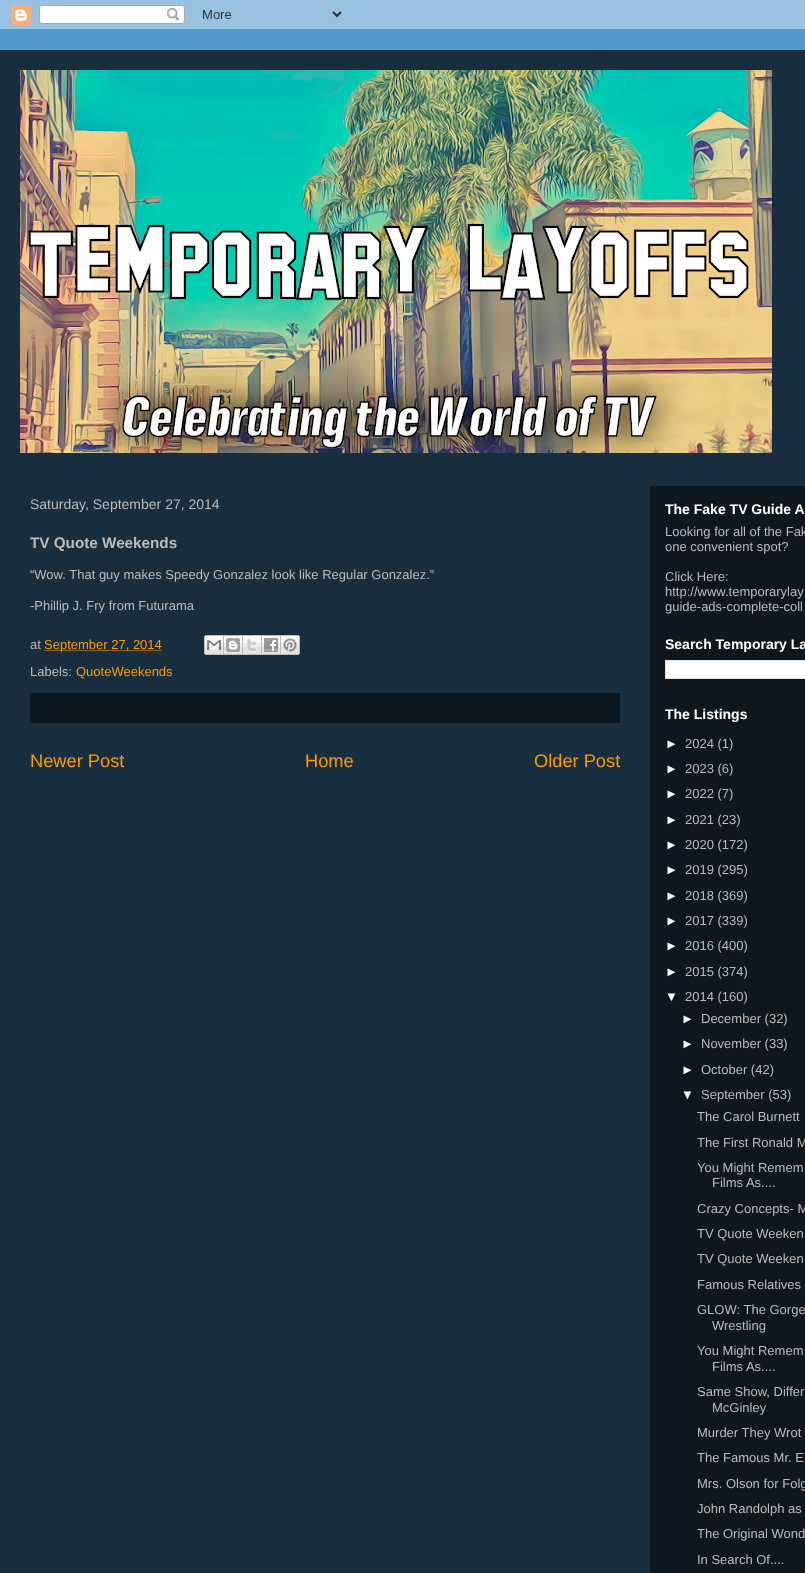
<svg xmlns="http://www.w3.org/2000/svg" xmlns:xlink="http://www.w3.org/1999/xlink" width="805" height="1573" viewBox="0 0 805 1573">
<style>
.cls-1{font:14px Liberation Sans;fill:#bbbbbb}
.cls-2{font:bold 15.25px Liberation Sans;fill:#bbbbbb}
.cls-3{font:13px Liberation Sans;fill:#bbbbbb}
.cls-4{font:13px Liberation Sans;fill:#ff9b00}
.cls-5{font:18.25px Liberation Sans;fill:#ff9b00}
.cls-6{font:bold 14px Liberation Sans;fill:#ffffff}
.cls-7{font:13px Liberation Sans;fill:#ffffff}
</style>
<rect width="100%" height="100%" fill="#529acd"/>
<image xlink:href="image0.png" x="0" y="0" width="805" height="30"/>
<rect fill="#182e3e" x="0" y="50" width="805" height="1523"/>
<image xlink:href="image1.png" x="20" y="70" width="752" height="383"/>
<rect fill="#0c171f" x="650" y="486" width="155" height="1087"/>
<path fill="none" stroke="#ff9b00" stroke-dasharray="1 1" d="M44.5 650.5H162.5"/>
<image xlink:href="image2.png" x="204" y="635" width="20" height="20"/>
<image xlink:href="image3.png" x="224" y="635" width="19" height="20"/>
<image xlink:href="image4.png" x="243" y="635" width="19" height="20"/>
<image xlink:href="image5.png" x="262" y="635" width="19" height="20"/>
<image xlink:href="image6.png" x="281" y="635" width="19" height="20"/>
<rect fill="#0c171f" x="30" y="693" width="590" height="30"/>
<rect fill="#ffffff" stroke="#dddddd" x="665.5" y="660.5" width="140" height="18"/>
<text class="cls-1" x="30" y="509">Saturday, September 27, 2014</text>
<text class="cls-2" x="30" y="548">TV Quote Weekends</text>
<text class="cls-3" x="30" y="579">“Wow. That guy makes Speedy Gonzalez look like Regular Gonzalez.”</text>
<text class="cls-3" x="30" y="610">-Phillip J. Fry from Futurama</text>
<text class="cls-3" x="30" y="649">at</text>
<text class="cls-4" x="44" y="649">September 27, 2014</text>
<text class="cls-3" x="30" y="676">Labels:</text>
<text class="cls-4" x="76" y="676">QuoteWeekends</text>
<text class="cls-5" x="30" y="767">Newer Post</text>
<text class="cls-5" x="305" y="767">Home</text>
<text class="cls-5" x="534" y="767">Older Post</text>
<text class="cls-6" x="665" y="514">The Fake TV Guide A</text>
<text class="cls-3"><tspan x="665" y="536">Looking for all of the Fak</tspan><tspan x="665" y="551">one convenient spot?</tspan></text>
<text class="cls-3"><tspan x="665" y="581">Click Here:</tspan><tspan x="665" y="596">http://www.temporarylay</tspan><tspan x="665" y="611">guide-ads-complete-coll</tspan></text>
<text class="cls-6" x="665" y="649">Search Temporary La</text>
<text class="cls-6" x="665" y="719">The Listings</text>
<text class="cls-7" x="665" y="748">►</text>
<text class="cls-3" x="685" y="748">2024 (1)</text>
<text class="cls-7" x="665" y="773">►</text>
<text class="cls-3" x="685" y="773">2023 (6)</text>
<text class="cls-7" x="665" y="798">►</text>
<text class="cls-3" x="685" y="798">2022 (7)</text>
<text class="cls-7" x="665" y="824">►</text>
<text class="cls-3" x="685" y="824">2021 (23)</text>
<text class="cls-7" x="665" y="849">►</text>
<text class="cls-3" x="685" y="849">2020 (172)</text>
<text class="cls-7" x="665" y="874">►</text>
<text class="cls-3" x="685" y="874">2019 (295)</text>
<text class="cls-7" x="665" y="900">►</text>
<text class="cls-3" x="685" y="900">2018 (369)</text>
<text class="cls-7" x="665" y="925">►</text>
<text class="cls-3" x="685" y="925">2017 (339)</text>
<text class="cls-7" x="665" y="950">►</text>
<text class="cls-3" x="685" y="950">2016 (400)</text>
<text class="cls-7" x="665" y="976">►</text>
<text class="cls-3" x="685" y="976">2015 (374)</text>
<text class="cls-7" x="665" y="1001">▼</text>
<text class="cls-3" x="685" y="1001">2014 (160)</text>
<text class="cls-7" x="681" y="1023">►</text>
<text class="cls-3" x="701" y="1023">December (32)</text>
<text class="cls-7" x="681" y="1048">►</text>
<text class="cls-3" x="701" y="1048">November (33)</text>
<text class="cls-7" x="681" y="1074">►</text>
<text class="cls-3" x="701" y="1074">October (42)</text>
<text class="cls-7" x="681" y="1099">▼</text>
<text class="cls-3" x="701" y="1099">September (53)</text>
<text class="cls-3" x="697" y="1121">The Carol Burnett</text>
<text class="cls-3"><tspan x="697" y="1147">The First Ronald M</tspan><tspan x="697" y="1172">You Might Remem</tspan></text>
<text class="cls-3" x="712" y="1187">Films As....</text>
<text class="cls-3"><tspan x="697" y="1213">Crazy Concepts- M</tspan><tspan x="697" y="1238">TV Quote Weeken</tspan><tspan x="697" y="1263">TV Quote Weeken</tspan></text>
<text class="cls-3"><tspan x="697" y="1289">Famous Relatives</tspan><tspan x="697" y="1314">GLOW: The Gorge</tspan></text>
<text class="cls-3" x="712" y="1330">Wrestling</text>
<text class="cls-3" x="697" y="1355">You Might Remem</text>
<text class="cls-3" x="712" y="1371">Films As....</text>
<text class="cls-3" x="697" y="1396">Same Show, Differ</text>
<text class="cls-3" x="712" y="1412">McGinley</text>
<text class="cls-3"><tspan x="697" y="1437">Murder They Wrot</tspan><tspan x="697" y="1462">The Famous Mr. E</tspan></text>
<text class="cls-3"><tspan x="697" y="1488">Mrs. Olson for Folg</tspan><tspan x="697" y="1513">John Randolph as</tspan><tspan x="697" y="1538">The Original Wond</tspan></text>
<text class="cls-3" x="697" y="1564">In Search Of....</text>
</svg>
